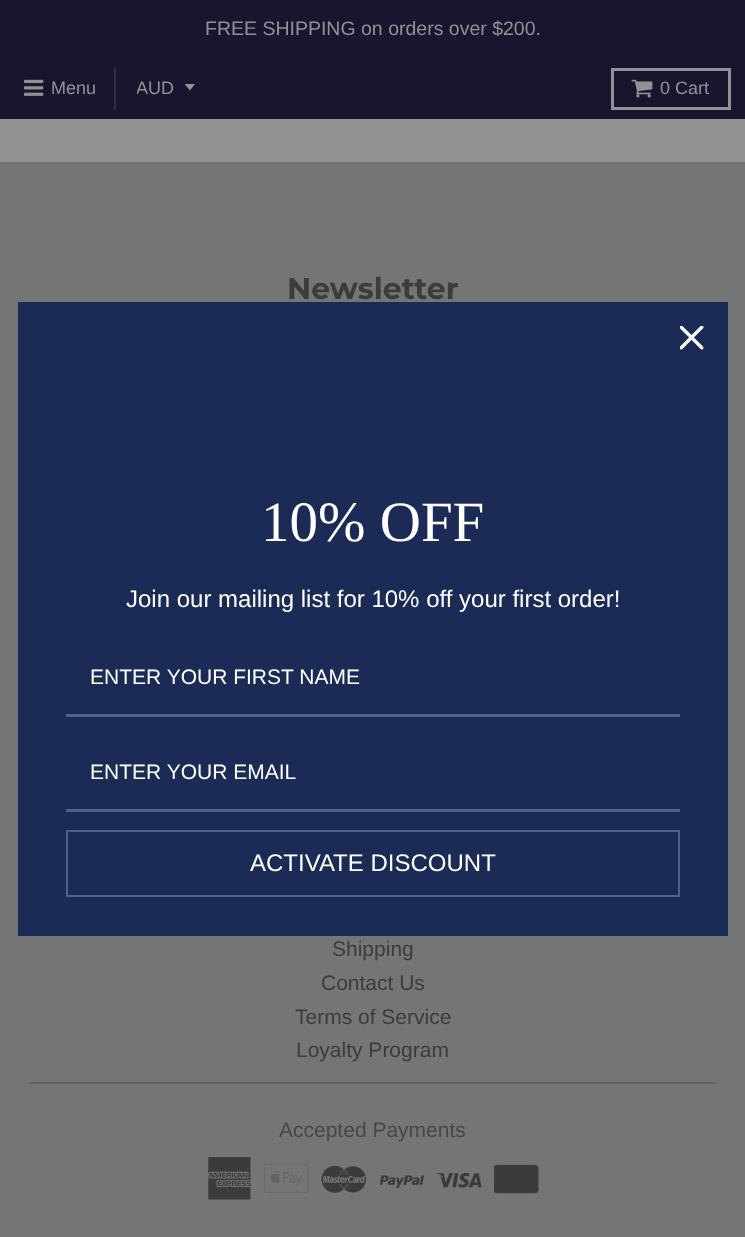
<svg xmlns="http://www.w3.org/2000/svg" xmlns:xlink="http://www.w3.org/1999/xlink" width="745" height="1237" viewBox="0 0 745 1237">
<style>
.cls-1{font:19.5px Liberation Sans;fill:#919292}
.cls-2{font:18px Liberation Sans;fill:#919292}
.cls-3{font:bold 30px Montserrat;fill:#3b3c3c}
.cls-4{font:21px Liberation Sans;fill:#3b3c3c}
.cls-5{font:21px Liberation Sans;fill:#464747}
.cls-6{font:57px Liberation Serif;fill:#ffffff}
.cls-7{font:24px Liberation Sans;fill:#ffffff}
.cls-8{font:21px Liberation Sans;fill:#ffffff}
</style>
<defs>
<clipPath id="clip1"><rect x="137" y="80" width="39" height="18"/></clipPath>
</defs>
<rect width="100%" height="100%" fill="#919292"/>
<rect fill="#1a152e" x="0" y="0" width="745" height="119"/>
<rect fill="#322e42" x="114" y="68" width="2" height="42"/>
<image xlink:href="image0.png" x="24" y="79" width="20" height="17"/>
<path fill="#919292" d="M184.5 84L190 90.5L195 84Z"/>
<rect fill="none" stroke="#919292" stroke-width="3" x="612.5" y="69.5" width="117" height="39"/>
<image xlink:href="image1.png" x="631" y="79" width="22" height="19"/>
<rect fill="#747575" x="0" y="162" width="745" height="1075"/>
<rect fill="#626363" x="30" y="1082" width="686" height="2"/>
<image xlink:href="image2.png" x="208" y="1157" width="43" height="43"/>
<image xlink:href="image3.png" x="264" y="1164" width="45" height="29"/>
<image xlink:href="image4.png" x="321" y="1165" width="45" height="28"/>
<image xlink:href="image5.png" x="380" y="1175" width="45" height="13"/>
<image xlink:href="image6.png" x="437" y="1173" width="45" height="15"/>
<image xlink:href="image7.png" x="494" y="1164" width="45" height="30"/>
<rect fill="#1b2b56" x="18" y="302" width="710" height="634"/>
<image xlink:href="image8.png" x="680" y="326" width="24" height="24"/>
<rect fill="#516089" x="66" y="714" width="614" height="3"/>
<rect fill="#516089" x="66" y="809" width="614" height="3"/>
<rect fill="none" stroke="#516089" stroke-width="2" x="67" y="831" width="612" height="65"/>
<text class="cls-1" x="205" y="35">FREE SHIPPING on orders over $200.</text>
<text class="cls-2" x="51" y="94">Menu</text>
<g clip-path="url(#clip1)">
<text class="cls-2" x="136" y="94">AUD</text>
</g>
<text class="cls-2" x="660" y="94">0 Cart</text>
<text class="cls-3" x="287" y="299">Newsletter</text>
<text class="cls-4" x="332" y="956">Shipping</text>
<text class="cls-4" x="321" y="990">Contact Us</text>
<text class="cls-4" x="295" y="1024">Terms of Service</text>
<text class="cls-4" x="296" y="1057">Loyalty Program</text>
<text class="cls-5" x="279" y="1137">Accepted Payments</text>
<text class="cls-6" x="261" y="541">10% OFF</text>
<text class="cls-7" x="126" y="607">Join our mailing list for 10% off your first order!</text>
<text class="cls-8" x="90" y="684">ENTER YOUR FIRST NAME</text>
<text class="cls-8" x="90" y="779">ENTER YOUR EMAIL</text>
<text class="cls-7" x="250" y="871">ACTIVATE DISCOUNT</text>
</svg>
